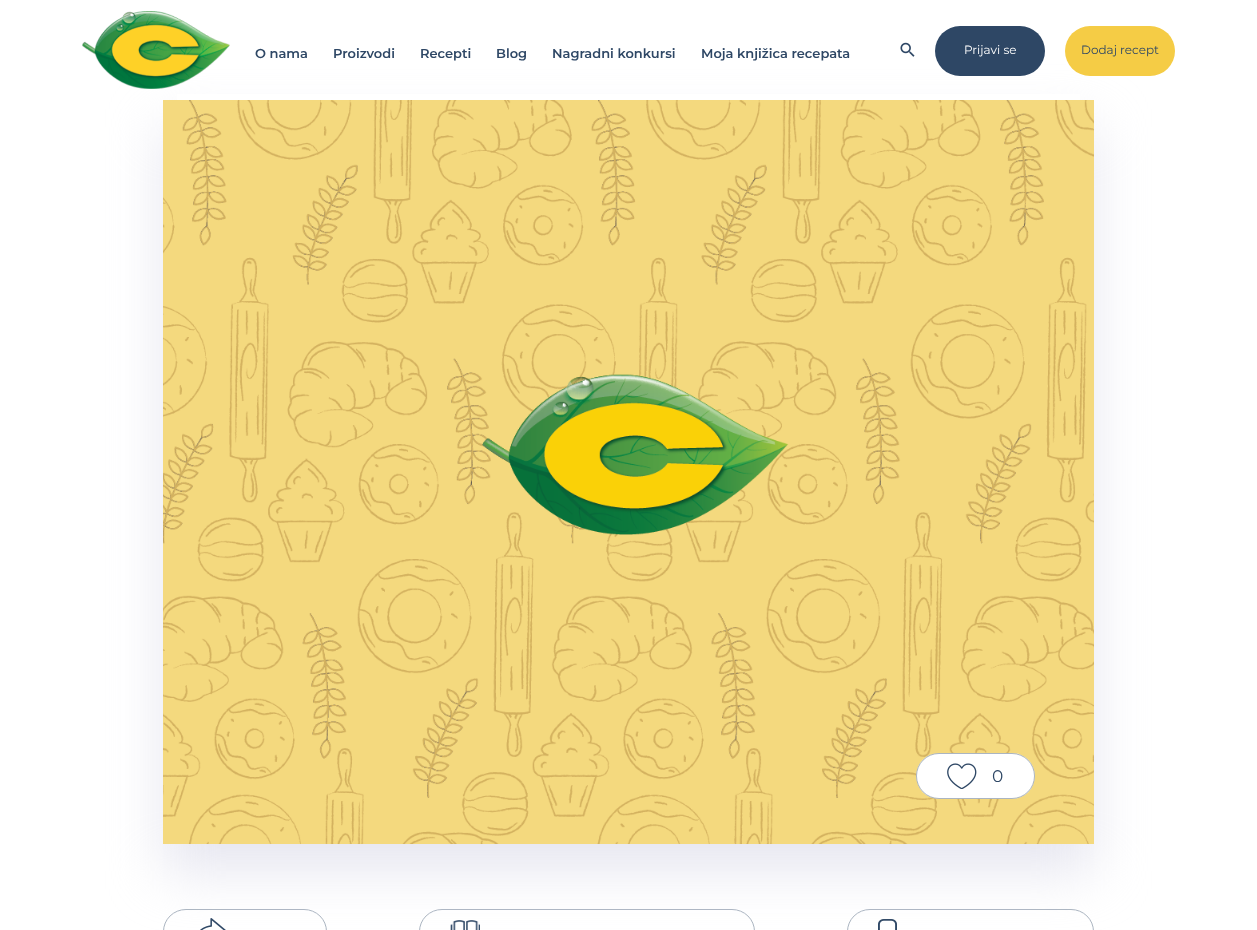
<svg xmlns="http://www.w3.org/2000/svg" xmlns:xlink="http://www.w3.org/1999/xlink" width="1257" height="930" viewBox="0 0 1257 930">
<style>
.cls-1{font:600 13px Montserrat;fill:#2e4765}
.cls-2{font:12px Montserrat;fill:#ffffff}
.cls-3{font:12px Montserrat;fill:#2e4765}
.cls-4{font:17px Montserrat;fill:#2e4765}
</style>
<rect width="100%" height="100%" fill="#ffffff"/>
<rect fill="none" stroke="#abb5c1" x="163.5" y="909.5" width="163" height="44" rx="22.5"/>
<image xlink:href="image4.png" x="200" y="918" width="26" height="12"/>
<rect fill="none" stroke="#abb5c1" x="419.5" y="909.5" width="335" height="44" rx="22.5"/>
<image xlink:href="image5.png" x="450" y="920" width="30" height="10"/>
<rect fill="none" stroke="#abb5c1" x="847.5" y="909.5" width="246" height="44" rx="22.5"/>
<image xlink:href="image6.png" x="878" y="919" width="19" height="11"/>
<rect fill="#e0e0ec" fill-opacity="0.8" filter="blur(26.5px)" x="163" y="127" width="931" height="744"/>
<rect fill="#ffffff" x="177" y="94" width="903" height="6"/>
<image xlink:href="image0.png" x="82" y="11" width="148" height="78"/>
<image xlink:href="image1.png" x="900" y="42" width="15" height="15"/>
<rect fill="#2e4765" x="935" y="26" width="110" height="50" rx="25"/>
<rect fill="#f5cc45" x="1065" y="26" width="110" height="50" rx="25"/>
<image xlink:href="image2.png" x="163" y="100" width="931" height="744"/>
<rect fill="#ffffff" x="916" y="753" width="119" height="46" rx="23"/>
<rect fill="none" stroke="#2e4765" stroke-opacity="0.4" x="916.5" y="753.5" width="118" height="45" rx="22.5"/>
<image xlink:href="image3.png" x="947" y="763" width="30" height="26"/>
<text class="cls-1" x="255" y="58">O nama</text>
<text class="cls-1" x="333" y="58">Proizvodi</text>
<text class="cls-1" x="420" y="58">Recepti</text>
<text class="cls-1" x="496" y="58">Blog</text>
<text class="cls-1" x="552" y="58">Nagradni konkursi</text>
<text class="cls-1" x="701" y="58">Moja knjižica recepata</text>
<text class="cls-2" x="964" y="54">Prijavi se</text>
<text class="cls-3" x="1081" y="54">Dodaj recept</text>
<text class="cls-4" x="992" y="782">0</text>
</svg>
